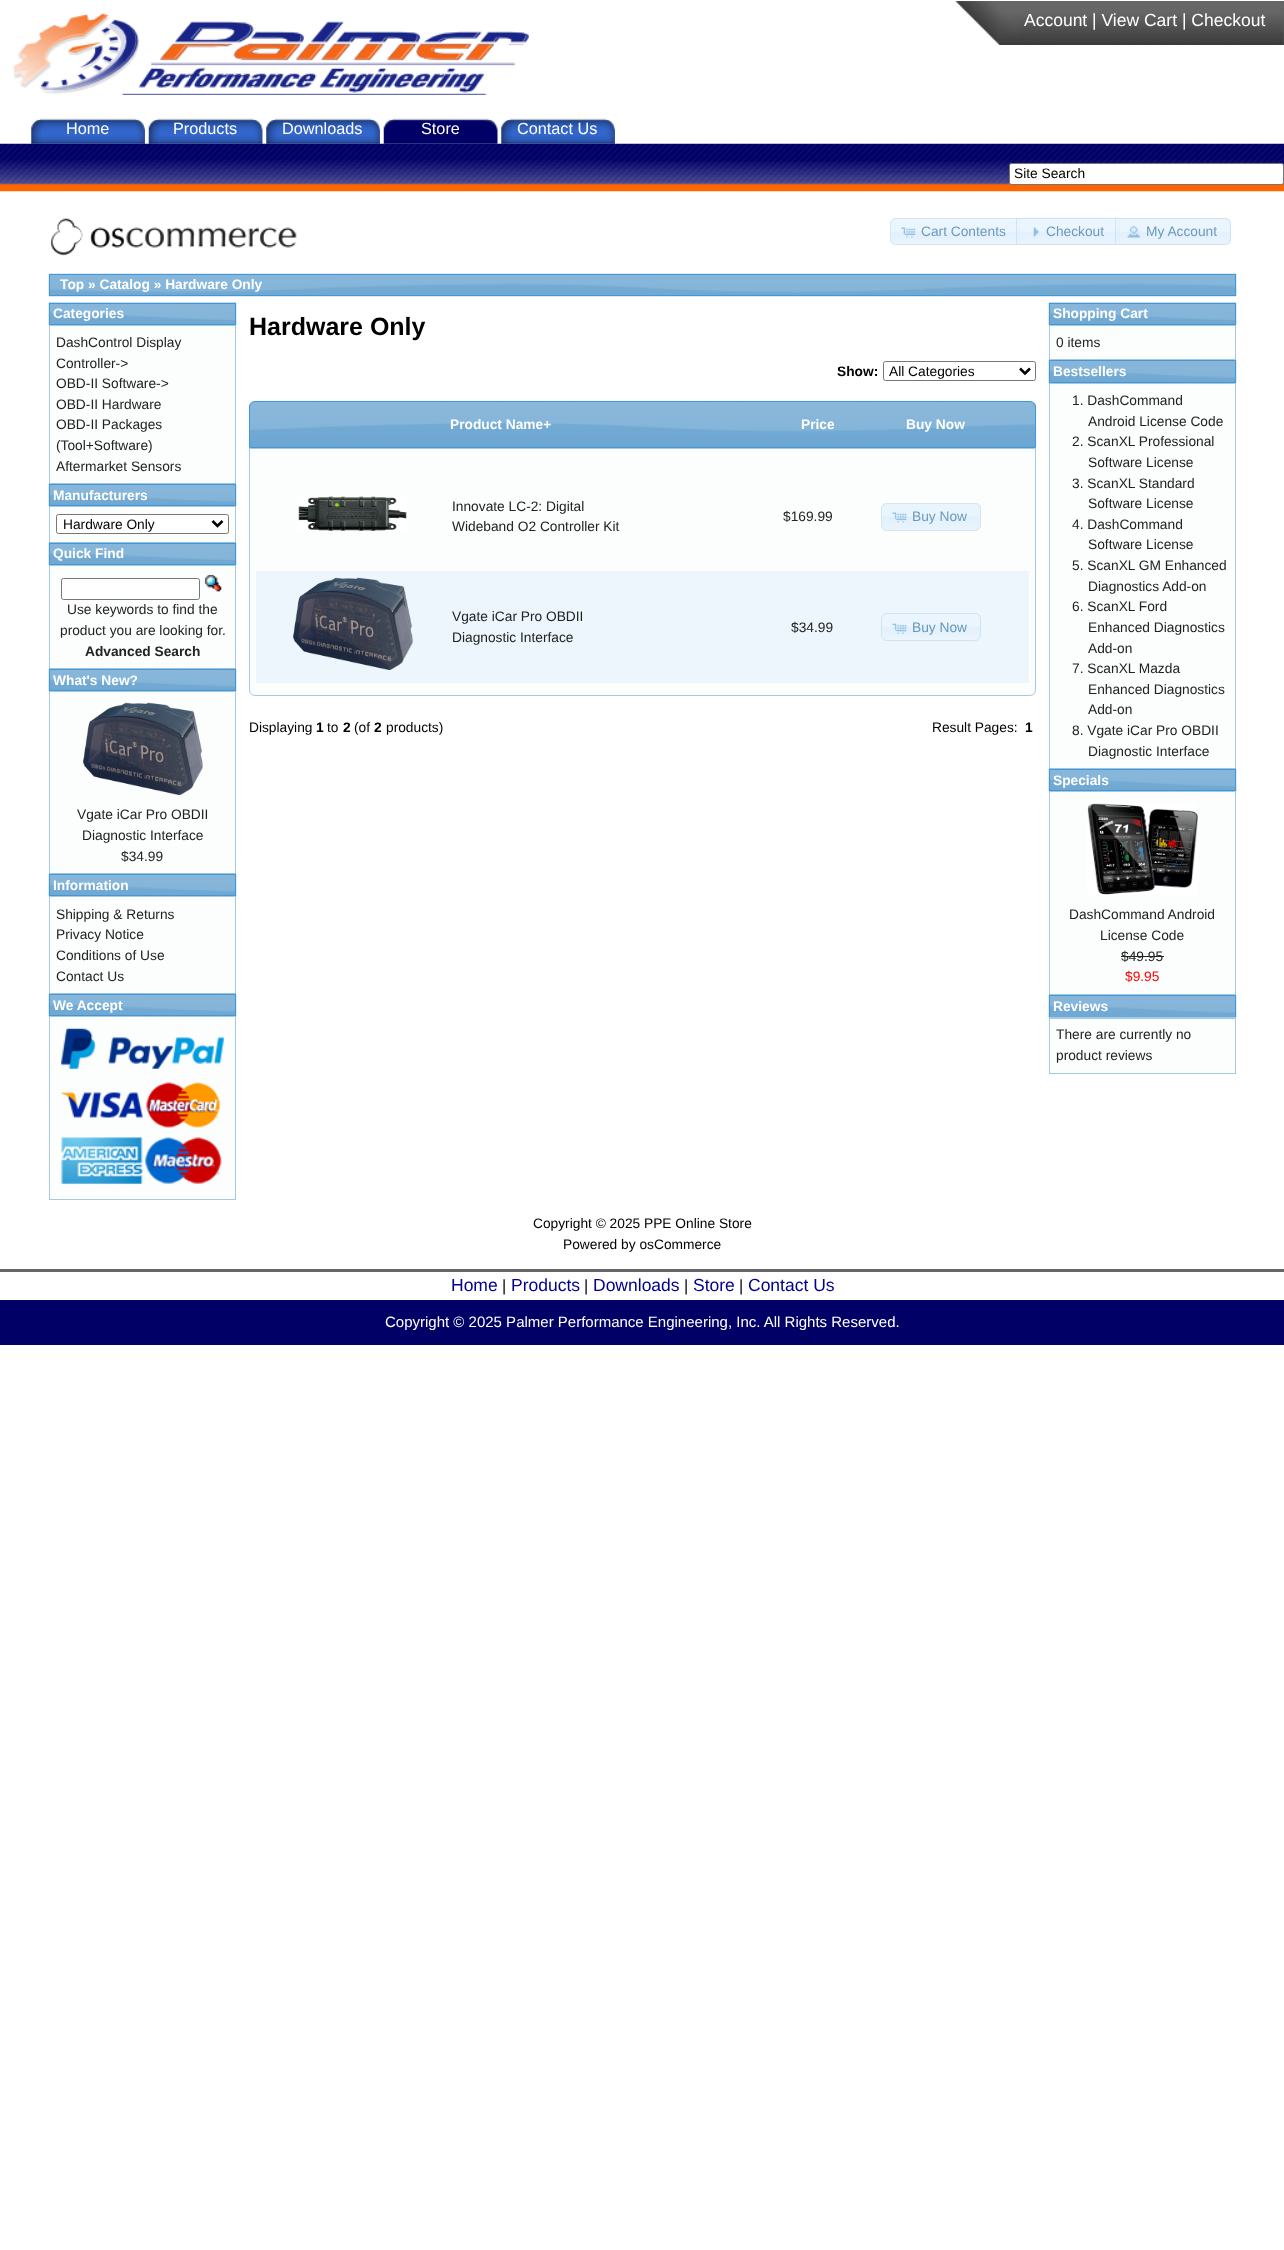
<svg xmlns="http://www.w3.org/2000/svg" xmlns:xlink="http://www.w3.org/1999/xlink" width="1284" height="2250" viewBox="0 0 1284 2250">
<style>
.cls-1{font:17.5px Liberation Sans;fill:#ffffff}
.cls-2{font:16.25px Liberation Sans;fill:#ffffff}
.cls-3{font:13.75px Liberation Sans;fill:#000000}
.cls-4{font:13.75px Liberation Sans;fill:#6d9abb}
.cls-5{font:bold 13.75px Liberation Sans;fill:#ffffff}
.cls-6{font:13.75px Liberation Sans;fill:#222222}
.cls-7{font:bold 13.75px Liberation Sans;fill:#222222}
.cls-8{font:bold 25px Liberation Sans;fill:#000000}
.cls-9{font:bold 13.75px Liberation Sans;fill:#000000}
.cls-10{font:13.75px Liberation Sans;fill:#6797ba}
.cls-11{font:13.75px Liberation Sans;fill:#ff0000}
.cls-12{font:17.5px Liberation Sans;fill:#00008b}
.cls-13{font:16.25px Liberation Sans;fill:#000000}
.cls-14{font:15px Liberation Sans;fill:#ffffff}
</style>
<rect width="100%" height="100%" fill="#ffffff"/>
<image xlink:href="image0.png" x="13" y="13" width="516" height="82"/>
<rect fill="#666666" x="955" y="1" width="329" height="44"/>
<image xlink:href="image1.png" x="955" y="1" width="329" height="44"/>
<image xlink:href="image2.png" x="31" y="118" width="114" height="26"/>
<image xlink:href="image3.png" x="148" y="118" width="115" height="26"/>
<image xlink:href="image2.png" x="266" y="118" width="114" height="26"/>
<image xlink:href="image4.png" x="383" y="118" width="115" height="26"/>
<image xlink:href="image2.png" x="501" y="118" width="114" height="26"/>
<image xlink:href="image5.png" x="0" y="143" width="1284" height="49"/>
<rect fill="#ffffff" stroke="#767676" x="1009.5" y="163.5" width="274" height="21" rx="2"/>
<image xlink:href="image6.png" x="51" y="218" width="246" height="38"/>
<path fill="#e9f4fd" d="M896 218H1020V245H896C892.5 245 890 242.5 890 239V224C890 220.5 892.5 218 896 218Z"/>
<image xlink:href="image7.png" x="890" y="217" width="130" height="24"/>
<path fill="none" stroke="#d6e6f2" d="M896 218.5H1019.5V244.5H896C893 244.5 890.5 242 890.5 239V224C890.5 221 893 218.5 896 218.5Z"/>
<image xlink:href="image8.png" x="901" y="227" width="15" height="11"/>
<rect fill="#dfeffc" fill-opacity="0.7" x="1016" y="218" width="104" height="27"/>
<image xlink:href="image9.png" x="1016" y="217" width="104" height="28"/>
<rect fill="none" stroke="#c5dbec" stroke-opacity="0.7" x="1016.5" y="218.5" width="103" height="26"/>
<image xlink:href="image10.png" x="1033" y="227" width="6" height="10"/>
<path fill="#dfeffc" fill-opacity="0.7" d="M1115 218H1225C1228.5 218 1231 220.5 1231 224V239C1231 242.5 1228.5 245 1225 245H1115Z"/>
<image xlink:href="image11.png" x="1115" y="217" width="116" height="28"/>
<path fill="none" stroke="#c5dbec" stroke-opacity="0.7" d="M1115.5 218.5H1225C1228 218.5 1230.5 221 1230.5 224V239C1230.5 242 1228 244.5 1225 244.5H1115.5Z"/>
<image xlink:href="image12.png" x="1127" y="226" width="14" height="12"/>
<image xlink:href="image13.png" x="48" y="273" width="1189" height="24"/>
<rect fill="none" stroke="#4297d7" x="49.5" y="274.5" width="1186" height="21"/>
<image xlink:href="image14.png" x="48" y="302" width="189" height="23"/>
<rect fill="none" stroke="#4297d7" x="49.5" y="303.5" width="186" height="21"/>
<rect fill="#fcfdfd" stroke="#a6c9e2" x="49.5" y="325.5" width="186" height="158"/>
<image xlink:href="image15.png" x="48" y="483" width="189" height="24"/>
<rect fill="none" stroke="#4297d7" x="49.5" y="484.5" width="186" height="21"/>
<rect fill="#fcfdfd" stroke="#a6c9e2" x="49.5" y="506.5" width="186" height="36"/>
<rect fill="#ffffff" stroke="#767676" x="56.5" y="514.5" width="172" height="19" rx="2"/>
<path fill="none" stroke="#000000" stroke-width="2.5" d="M212.5 521L217.5 526L222.5 521"/>
<image xlink:href="image16.png" x="48" y="542" width="189" height="23"/>
<rect fill="none" stroke="#4297d7" x="49.5" y="543.5" width="186" height="21"/>
<rect fill="#fcfdfd" stroke="#a6c9e2" x="49.5" y="565.5" width="186" height="103"/>
<rect fill="#ffffff" stroke="#767676" x="61.5" y="578.5" width="138" height="21" rx="2"/>
<image xlink:href="image17.png" x="204" y="574" width="18" height="18"/>
<image xlink:href="image15.png" x="48" y="668" width="189" height="24"/>
<rect fill="none" stroke="#4297d7" x="49.5" y="669.5" width="186" height="21"/>
<rect fill="#fcfdfd" stroke="#a6c9e2" x="49.5" y="691.5" width="186" height="182"/>
<image xlink:href="image18.png" x="83" y="702" width="120" height="94"/>
<image xlink:href="image15.png" x="48" y="873" width="189" height="24"/>
<rect fill="none" stroke="#4297d7" x="49.5" y="874.5" width="186" height="21"/>
<rect fill="#fcfdfd" stroke="#a6c9e2" x="49.5" y="896.5" width="186" height="97"/>
<image xlink:href="image15.png" x="48" y="993" width="189" height="24"/>
<rect fill="none" stroke="#4297d7" x="49.5" y="994.5" width="186" height="21"/>
<rect fill="#fcfdfd" stroke="#a6c9e2" x="49.5" y="1016.5" width="186" height="183"/>
<image xlink:href="image19.png" x="61" y="1028" width="163" height="41"/>
<image xlink:href="image20.png" x="61" y="1092" width="82" height="26"/>
<image xlink:href="image21.png" x="146" y="1082" width="75" height="46"/>
<image xlink:href="image22.png" x="61" y="1137" width="82" height="47"/>
<image xlink:href="image23.png" x="144" y="1137" width="78" height="47"/>
<rect fill="none" stroke="#767676" x="883.5" y="361.5" width="152" height="19" rx="2"/>
<path fill="none" stroke="#000000" stroke-width="2.5" d="M1020 368.5L1025 373.5L1030 368.5"/>
<image xlink:href="image24.png" x="248" y="401" width="789" height="46"/>
<path fill="none" stroke="#4297d7" d="M255 401.5H1030C1033 401.5 1035.5 404 1035.5 407V447.5H249.5V407C249.5 404 252 401.5 255 401.5Z"/>
<path fill="#fcfdfd" stroke="#a6c9e2" d="M249.5 448.5H1035.5V690C1035.5 693 1033 695.5 1030 695.5H255C252 695.5 249.5 693 249.5 690Z"/>
<image xlink:href="image25.png" x="298" y="496" width="109" height="35"/>
<rect fill="#e8f3fc" x="881" y="503" width="100" height="28" rx="6"/>
<image xlink:href="image26.png" x="882" y="503" width="99" height="25"/>
<rect fill="none" stroke="#d6e5f1" x="881.5" y="503.5" width="99" height="27" rx="5.5"/>
<image xlink:href="image27.png" x="892" y="512" width="15" height="11"/>
<rect fill="#ecf6fc" x="256" y="571" width="773" height="112"/>
<image xlink:href="image28.png" x="293" y="577" width="120" height="94"/>
<image xlink:href="image29.png" x="882" y="613" width="99" height="28"/>
<rect fill="none" stroke="#d1e3f1" x="881.5" y="613.5" width="99" height="27" rx="5.5"/>
<image xlink:href="image30.png" x="892" y="623" width="15" height="11"/>
<image xlink:href="image31.png" x="1048" y="302" width="189" height="23"/>
<rect fill="none" stroke="#4297d7" x="1049.5" y="303.5" width="186" height="21"/>
<rect fill="#fcfdfd" stroke="#a6c9e2" x="1049.5" y="325.5" width="186" height="34"/>
<image xlink:href="image32.png" x="1048" y="360" width="189" height="23"/>
<rect fill="none" stroke="#4297d7" x="1049.5" y="360.5" width="186" height="22"/>
<rect fill="#fcfdfd" stroke="#a6c9e2" x="1049.5" y="383.5" width="186" height="385"/>
<image xlink:href="image15.png" x="1048" y="768" width="189" height="24"/>
<rect fill="none" stroke="#4297d7" x="1049.5" y="769.5" width="186" height="21"/>
<rect fill="#fcfdfd" stroke="#a6c9e2" x="1049.5" y="791.5" width="186" height="203"/>
<image xlink:href="image33.png" x="1087" y="803" width="111" height="92"/>
<rect fill="#222222" x="1121" y="956" width="43" height="1"/>
<image xlink:href="image32.png" x="1048" y="995" width="189" height="23"/>
<rect fill="none" stroke="#4297d7" x="1049.5" y="995.5" width="186" height="22"/>
<rect fill="#fcfdfd" stroke="#a6c9e2" x="1049.5" y="1018.5" width="186" height="55"/>
<rect fill="#a0cbeb" x="1049" y="1017" width="187" height="1"/>
<rect fill="#666666" x="0" y="1269" width="1284" height="3"/>
<rect fill="#000066" x="0" y="1300" width="1284" height="45"/>
<text class="cls-1" x="1024" y="26">Account | View Cart | Checkout</text>
<text class="cls-2" x="66" y="134">Home</text>
<text class="cls-2" x="173" y="134">Products</text>
<text class="cls-2" x="282" y="134">Downloads</text>
<text class="cls-2" x="421" y="134">Store</text>
<text class="cls-2" x="517" y="134">Contact Us</text>
<text class="cls-3" x="1014" y="178">Site Search</text>
<text class="cls-4" x="921" y="236">Cart Contents</text>
<text class="cls-4" x="1046" y="236">Checkout</text>
<text class="cls-4" x="1146" y="236">My Account</text>
<text class="cls-5" x="60" y="289">Top » Catalog » Hardware Only</text>
<text class="cls-5" x="53" y="318">Categories</text>
<text class="cls-6"><tspan x="56" y="347">DashControl Display</tspan><tspan x="56" y="368">Controller-&gt;</tspan><tspan x="56" y="388">OBD-II Software-&gt;</tspan><tspan x="56" y="409">OBD-II Hardware</tspan><tspan x="56" y="429">OBD-II Packages</tspan><tspan x="56" y="450">(Tool+Software)</tspan><tspan x="56" y="471">Aftermarket Sensors</tspan></text>
<text class="cls-5" x="53" y="500">Manufacturers</text>
<text class="cls-3" x="63" y="529">Hardware Only</text>
<text class="cls-5" x="53" y="558">Quick Find</text>
<text class="cls-6" x="67" y="614">Use keywords to find the</text>
<text class="cls-6" x="60" y="635">product you are looking for.</text>
<text class="cls-7" x="85" y="656">Advanced Search</text>
<text class="cls-5" x="53" y="685">What's New?</text>
<text class="cls-6" x="77" y="819">Vgate iCar Pro OBDII</text>
<text class="cls-6" x="82" y="840">Diagnostic Interface</text>
<text class="cls-6" x="121" y="861">$34.99</text>
<text class="cls-5" x="53" y="890">Information</text>
<text class="cls-6"><tspan x="56" y="919">Shipping &amp; Returns</tspan><tspan x="56" y="939">Privacy Notice</tspan><tspan x="56" y="960">Conditions of Use</tspan><tspan x="56" y="981">Contact Us</tspan></text>
<text class="cls-5" x="53" y="1010">We Accept</text>
<text class="cls-8" x="249" y="335">Hardware Only</text>
<text class="cls-9" x="837" y="376">Show:</text>
<text class="cls-3" x="889" y="376">All Categories</text>
<text class="cls-5" x="450" y="429">Product Name+</text>
<text class="cls-5" x="801" y="429">Price</text>
<text class="cls-5" x="906" y="429">Buy Now</text>
<text class="cls-6"><tspan x="452" y="511">Innovate LC-2: Digital</tspan><tspan x="452" y="531">Wideband O2 Controller Kit</tspan></text>
<text class="cls-6" x="783" y="521">$169.99</text>
<text class="cls-4" x="912" y="521">Buy Now</text>
<text class="cls-6"><tspan x="452" y="621">Vgate iCar Pro OBDII</tspan><tspan x="452" y="642">Diagnostic Interface</tspan></text>
<text class="cls-6" x="791" y="632">$34.99</text>
<text class="cls-10" x="912" y="632">Buy Now</text>
<text class="cls-3" x="249" y="732">Displaying</text>
<text class="cls-9" x="316" y="732">1</text>
<text class="cls-3" x="327" y="732">to</text>
<text class="cls-9" x="343" y="732">2</text>
<text class="cls-3" x="354" y="732">(of</text>
<text class="cls-9" x="374" y="732">2</text>
<text class="cls-3" x="386" y="732">products)</text>
<text class="cls-3" x="932" y="732">Result Pages:</text>
<text class="cls-9" x="1025" y="732">1</text>
<text class="cls-5" x="1053" y="318">Shopping Cart</text>
<text class="cls-6" x="1056" y="347">0 items</text>
<text class="cls-5" x="1053" y="376">Bestsellers</text>
<text class="cls-6" x="1072" y="405">1. DashCommand</text>
<text class="cls-6" x="1088" y="426">Android License Code</text>
<text class="cls-6" x="1072" y="446">2. ScanXL Professional</text>
<text class="cls-6" x="1088" y="467">Software License</text>
<text class="cls-6" x="1072" y="488">3. ScanXL Standard</text>
<text class="cls-6" x="1088" y="508">Software License</text>
<text class="cls-6" x="1072" y="529">4. DashCommand</text>
<text class="cls-6" x="1088" y="549">Software License</text>
<text class="cls-6" x="1072" y="570">5. ScanXL GM Enhanced</text>
<text class="cls-6" x="1088" y="591">Diagnostics Add-on</text>
<text class="cls-6" x="1072" y="611">6. ScanXL Ford</text>
<text class="cls-6"><tspan x="1088" y="632">Enhanced Diagnostics</tspan><tspan x="1088" y="653">Add-on</tspan></text>
<text class="cls-6" x="1072" y="673">7. ScanXL Mazda</text>
<text class="cls-6"><tspan x="1088" y="694">Enhanced Diagnostics</tspan><tspan x="1088" y="714">Add-on</tspan></text>
<text class="cls-6" x="1072" y="735">8. Vgate iCar Pro OBDII</text>
<text class="cls-6" x="1088" y="756">Diagnostic Interface</text>
<text class="cls-5" x="1053" y="785">Specials</text>
<text class="cls-6" x="1069" y="919">DashCommand Android</text>
<text class="cls-6" x="1100" y="940">License Code</text>
<text class="cls-6" x="1121" y="961">$49.95</text>
<text class="cls-11" x="1125" y="981">$9.95</text>
<text class="cls-5" x="1053" y="1011">Reviews</text>
<text class="cls-6"><tspan x="1056" y="1039">There are currently no</tspan><tspan x="1056" y="1060">product reviews</tspan></text>
<text class="cls-3" x="533" y="1228">Copyright © 2025 PPE Online Store</text>
<text class="cls-3" x="563" y="1249">Powered by osCommerce</text>
<text class="cls-12" x="451" y="1291">Home</text>
<text class="cls-13" x="502" y="1291">|</text>
<text class="cls-12" x="511" y="1291">Products</text>
<text class="cls-13" x="584" y="1291">|</text>
<text class="cls-12" x="593" y="1291">Downloads</text>
<text class="cls-13" x="684" y="1291">|</text>
<text class="cls-12" x="693" y="1291">Store</text>
<text class="cls-13" x="739" y="1291">|</text>
<text class="cls-12" x="748" y="1291">Contact Us</text>
<text class="cls-14" x="385" y="1327">Copyright © 2025 Palmer Performance Engineering, Inc. All Rights Reserved.</text>
</svg>
